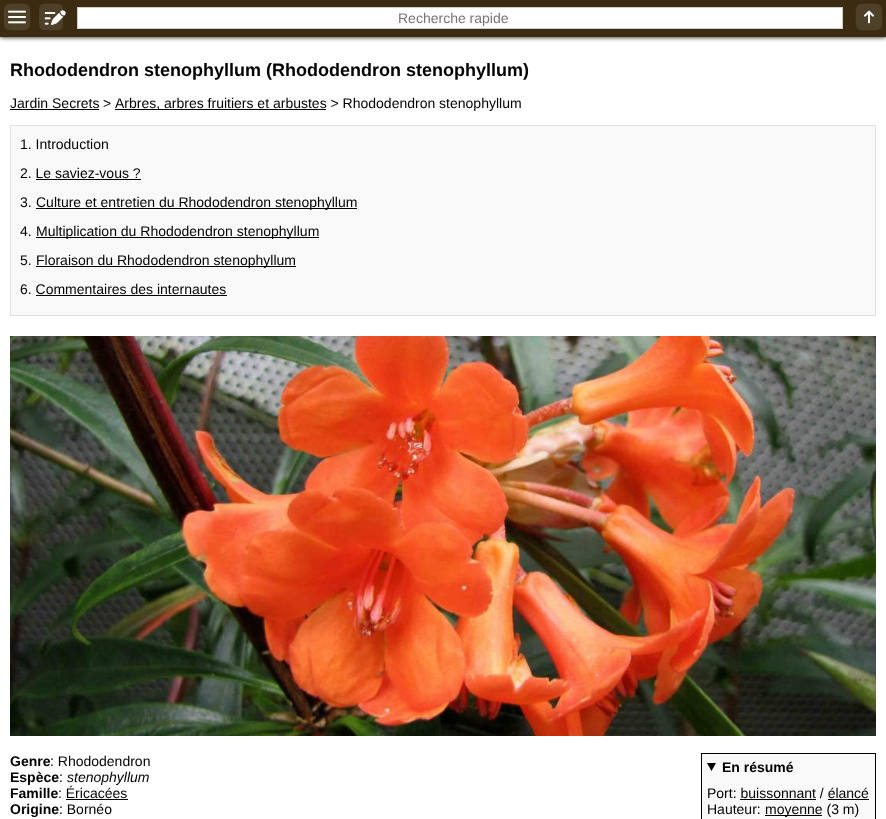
<svg xmlns="http://www.w3.org/2000/svg" xmlns:xlink="http://www.w3.org/1999/xlink" width="886" height="819" viewBox="0 0 886 819">
<style>
.cls-1{font:14px Liberation Sans;fill:#757575}
.cls-2{font:bold 18px Liberation Sans;fill:#000000}
.cls-3{font:14px Liberation Sans;fill:#000000}
.cls-4{font:bold 14px Liberation Sans;fill:#000000}
.cls-5{font:italic 14px Liberation Sans;fill:#000000}
</style>
<rect width="100%" height="100%" fill="#ffffff"/>
<rect fill="#000000" filter="blur(2.5px)" x="0" y="0" width="886" height="37"/>
<rect fill="#3b2b11" x="0" y="0" width="886" height="37"/>
<image xlink:href="image0.png" x="3" y="3" width="28" height="28"/>
<image xlink:href="image1.png" x="39" y="3" width="27" height="28"/>
<rect fill="#ffffff" stroke="#cccccc" x="77.5" y="7.5" width="765" height="21"/>
<image xlink:href="image2.png" x="855" y="3" width="28" height="28"/>
<rect fill="#000000" x="10" y="109" width="89" height="1"/>
<rect fill="#000000" x="115" y="109" width="211" height="1"/>
<rect fill="#f9f9f9" stroke="#e0e0e0" x="10.5" y="125.5" width="865" height="190"/>
<rect fill="#000000" x="36" y="179" width="105" height="1"/>
<rect fill="#000000" x="36" y="208" width="321" height="1"/>
<rect fill="#000000" x="36" y="237" width="283" height="1"/>
<rect fill="#000000" x="36" y="266" width="260" height="1"/>
<rect fill="#000000" x="36" y="295" width="191" height="1"/>
<image xlink:href="image3.png" x="10" y="336" width="866" height="400"/>
<rect fill="#000000" x="66" y="799" width="62" height="1"/>
<rect fill="#f9f9f9" stroke="#000000" x="701.5" y="753.5" width="174" height="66"/>
<path fill="#000000" d="M707 763H716L711.5 771Z"/>
<rect fill="#000000" x="740" y="799" width="76" height="1"/>
<rect fill="#000000" x="828" y="799" width="41" height="1"/>
<rect fill="#000000" x="765" y="815" width="57" height="1"/>
<text class="cls-1" x="398" y="23">Recherche rapide</text>
<text class="cls-2" x="10" y="76">Rhododendron stenophyllum (Rhododendron stenophyllum)</text>
<text class="cls-3" x="10" y="108">Jardin Secrets</text>
<text class="cls-3" x="103" y="108">&gt;</text>
<text class="cls-3" x="115" y="108">Arbres, arbres fruitiers et arbustes &gt; Rhododendron stenophyllum</text>
<text class="cls-3" x="20" y="149">1. Introduction</text>
<text class="cls-3" x="20" y="178">2. Le saviez-vous ?</text>
<text class="cls-3" x="20" y="207">3.</text>
<text class="cls-3" x="36" y="207">Culture et entretien du Rhododendron stenophyllum</text>
<text class="cls-3" x="20" y="236">4.</text>
<text class="cls-3" x="36" y="236">Multiplication du Rhododendron stenophyllum</text>
<text class="cls-3" x="20" y="265">5.</text>
<text class="cls-3" x="36" y="265">Floraison du Rhododendron stenophyllum</text>
<text class="cls-3" x="20" y="294">6. Commentaires des internautes</text>
<text class="cls-4" x="10" y="766">Genre</text>
<text class="cls-3" x="50" y="766">: Rhododendron</text>
<text class="cls-4" x="10" y="782">Espèce</text>
<text class="cls-3" x="59" y="782">:</text>
<text class="cls-5" x="67" y="782">stenophyllum</text>
<text class="cls-4" x="10" y="798">Famille</text>
<text class="cls-3" x="58" y="798">: Éricacées</text>
<text class="cls-4" x="10" y="814">Origine</text>
<text class="cls-3" x="59" y="814">: Bornéo</text>
<text class="cls-4" x="722" y="772">En résumé</text>
<text class="cls-3"><tspan x="707" y="798">Port: buissonnant / élancé</tspan><tspan x="707" y="814">Hauteur:</tspan></text>
<text class="cls-3" x="765" y="814">moyenne (3 m)</text>
</svg>
